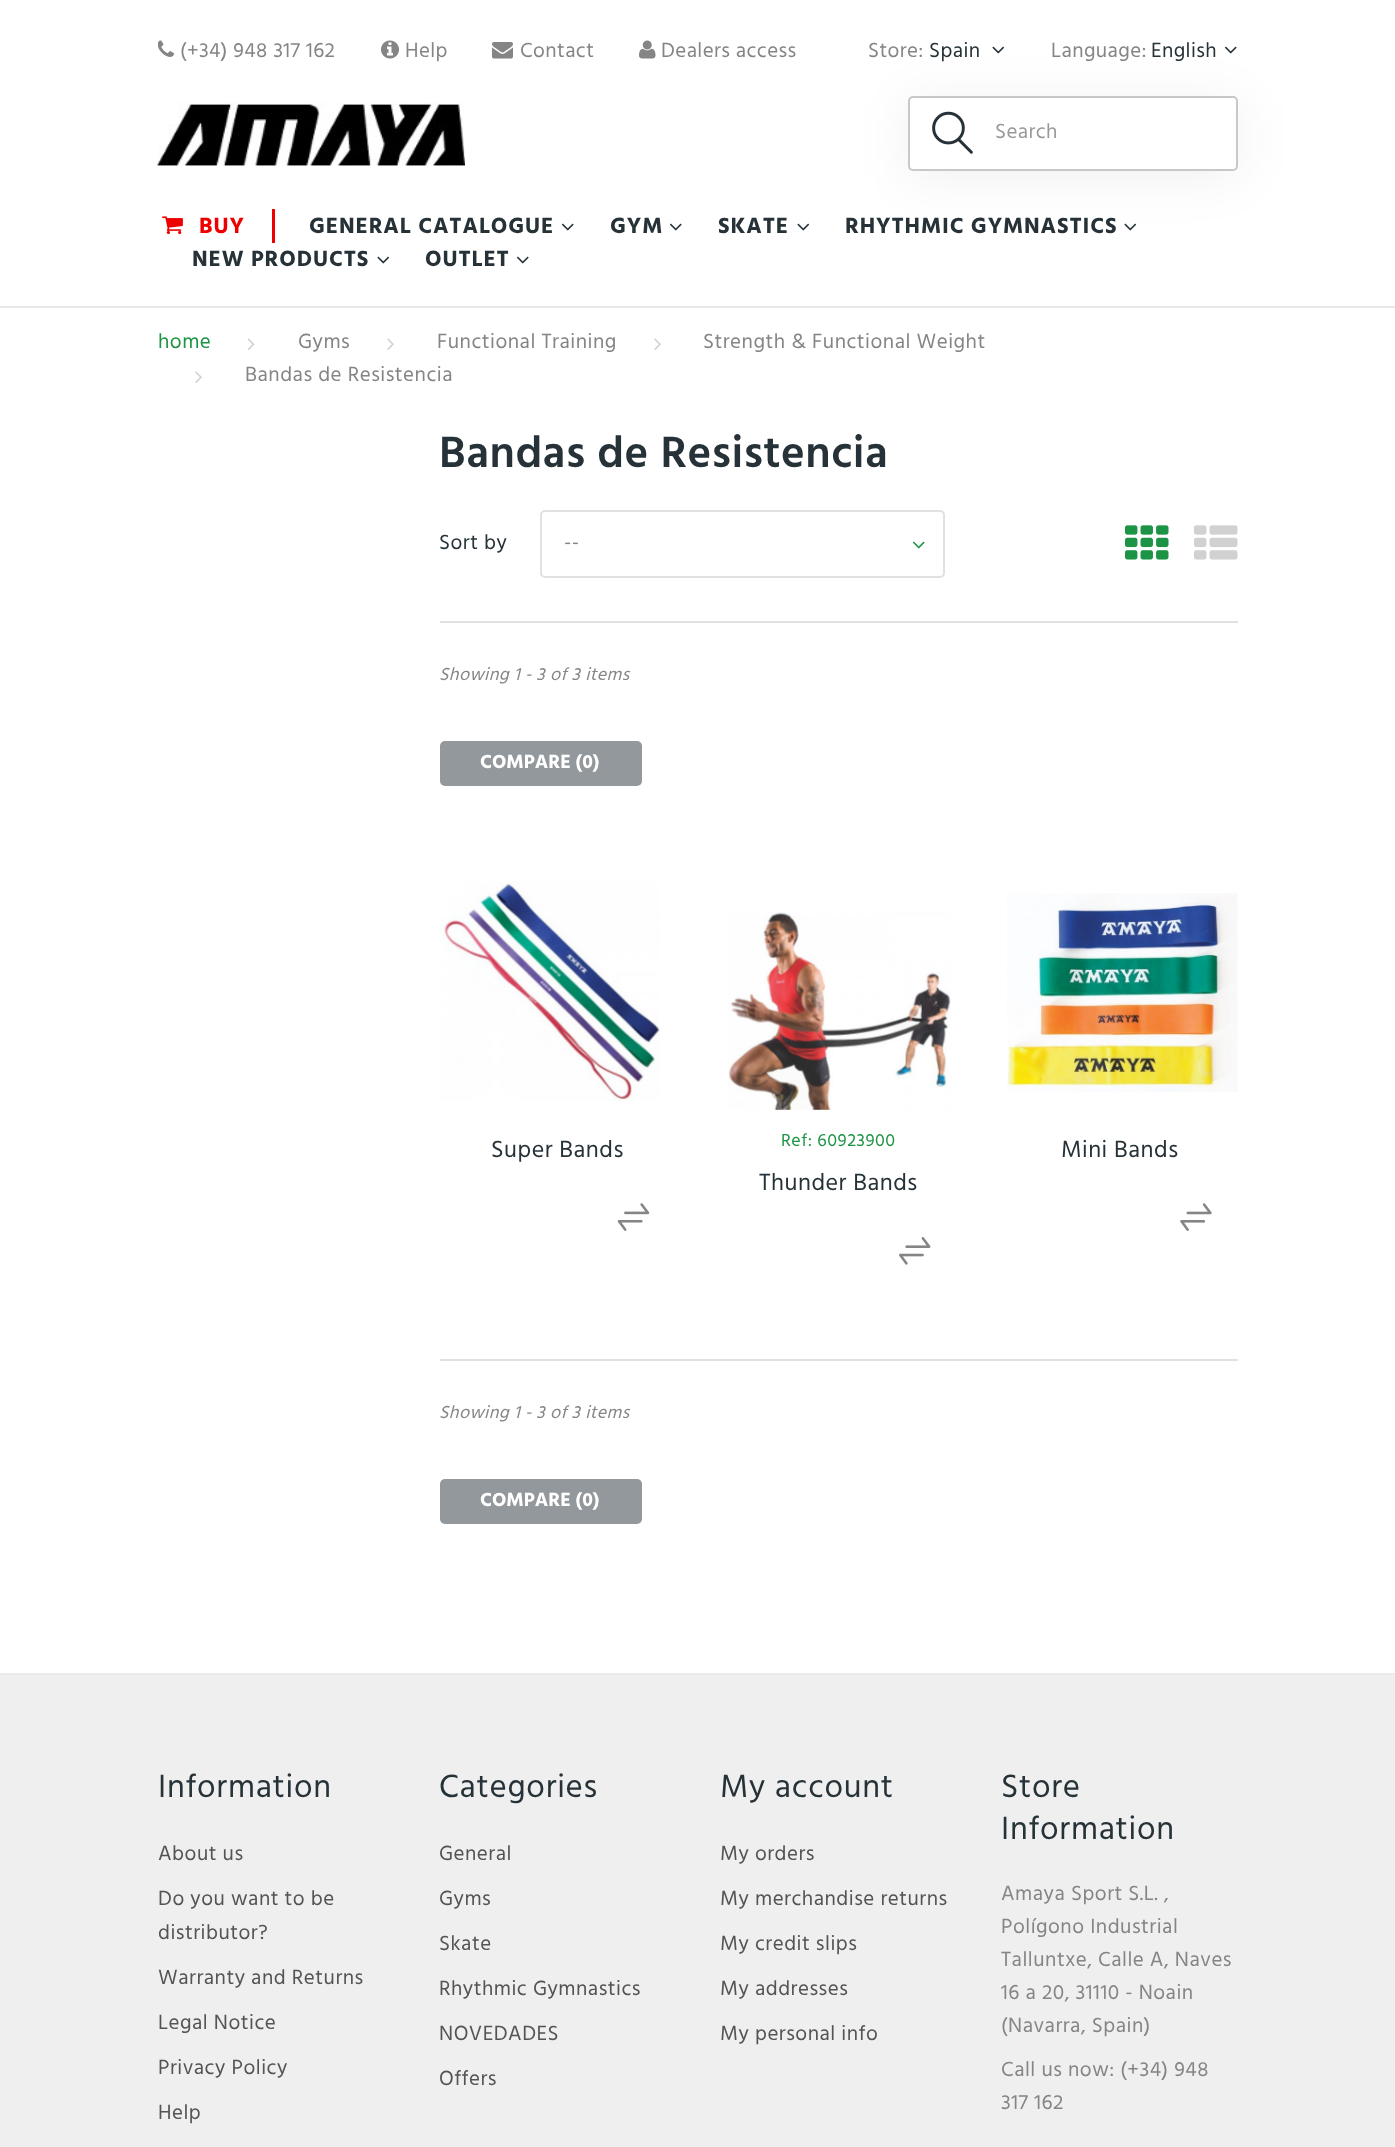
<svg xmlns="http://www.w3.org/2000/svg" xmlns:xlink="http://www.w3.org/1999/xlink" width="1395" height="2147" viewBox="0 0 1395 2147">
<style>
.cls-1{font:21px Hind;letter-spacing:0.4px;fill:#858586}
.cls-2{font:21px Hind;letter-spacing:0.4px;fill:#263238}
.cls-3{font:21px Hind;letter-spacing:0.4px;fill:#999999}
.cls-4{font:bold 22.5px Hind;letter-spacing:0.9px;fill:#ee0000}
.cls-5{font:bold 22.5px Hind;letter-spacing:0.9px;fill:#263238}
.cls-6{font:21px Hind;letter-spacing:0.5px;fill:#1d9445}
.cls-7{font:21px Hind;letter-spacing:0.5px;fill:#858586}
.cls-8{font:600 45px Hind;letter-spacing:0.5px;fill:#263238}
.cls-9{font:21px Hind;letter-spacing:0.5px;fill:#263238}
.cls-10{font:italic 18px Hind;letter-spacing:0.4px;fill:#858586}
.cls-11{font:bold 19.5px Hind;fill:#ffffff}
.cls-12{font:24px Hind;letter-spacing:0.5px;fill:#263238}
.cls-13{font:18px Hind;letter-spacing:0.5px;fill:#1d9445}
.cls-14{font:33px Hind;letter-spacing:0.75px;fill:#263238}
.cls-15{font:21px Hind;letter-spacing:0.5px;fill:#545454}
</style>
<rect width="100%" height="100%" fill="#ffffff"/>
<image xlink:href="image0.png" x="158" y="40" width="16" height="17"/>
<image xlink:href="image1.png" x="381" y="40" width="18" height="19"/>
<image xlink:href="image2.png" x="492" y="42" width="21" height="17"/>
<image xlink:href="image3.png" x="639" y="40" width="17" height="19"/>
<image xlink:href="image4.png" x="992" y="46" width="13" height="8"/>
<image xlink:href="image5.png" x="1224" y="46" width="13" height="8"/>
<image xlink:href="image6.png" x="157" y="102" width="308" height="64"/>
<rect fill="#000000" fill-opacity="0.06" filter="blur(26px)" x="908" y="102" width="330" height="75" rx="5"/>
<rect fill="#ffffff" stroke="#c8c8cb" stroke-width="2" x="909" y="97" width="328" height="73" rx="4"/>
<image xlink:href="image7.png" x="932" y="111" width="41" height="43"/>
<rect fill="#ee0000" x="272" y="209" width="3" height="34"/>
<image xlink:href="image8.png" x="162" y="216" width="21" height="19"/>
<image xlink:href="image5.png" x="561" y="223" width="13" height="8"/>
<image xlink:href="image5.png" x="669" y="223" width="13" height="8"/>
<image xlink:href="image4.png" x="797" y="223" width="13" height="8"/>
<image xlink:href="image9.png" x="1124" y="223" width="13" height="8"/>
<image xlink:href="image4.png" x="377" y="256" width="13" height="8"/>
<image xlink:href="image5.png" x="516" y="256" width="13" height="8"/>
<rect fill="#e8e8e8" x="0" y="306" width="1395" height="2"/>
<image xlink:href="image10.png" x="247" y="338" width="8" height="12"/>
<image xlink:href="image11.png" x="387" y="338" width="7" height="12"/>
<image xlink:href="image11.png" x="654" y="338" width="7" height="12"/>
<image xlink:href="image11.png" x="195" y="371" width="7" height="12"/>
<rect fill="none" stroke="#e1e1e1" stroke-width="2" x="541" y="511" width="403" height="66" rx="4"/>
<image xlink:href="image12.png" x="912" y="541" width="13" height="8"/>
<image xlink:href="image13.png" x="1125" y="525" width="44" height="35"/>
<image xlink:href="image14.png" x="1194" y="525" width="44" height="35"/>
<rect fill="#e1e1e1" x="440" y="621" width="798" height="2"/>
<rect fill="#92989b" x="440" y="741" width="202" height="45" rx="5"/>
<image xlink:href="image15.png" x="440" y="882" width="220" height="219"/>
<image xlink:href="image16.png" x="617" y="1203" width="33" height="28"/>
<image xlink:href="image17.png" x="728" y="912" width="223" height="198"/>
<image xlink:href="image18.png" x="899" y="1237" width="32" height="28"/>
<image xlink:href="image19.png" x="1007" y="893" width="231" height="199"/>
<image xlink:href="image20.png" x="1180" y="1203" width="32" height="28"/>
<rect fill="#e1e1e1" x="440" y="1359" width="798" height="2"/>
<rect fill="#92989b" x="440" y="1479" width="202" height="45" rx="5"/>
<rect fill="#efefef" x="0" y="1675" width="1395" height="472"/>
<rect fill="#ebebeb" x="0" y="1673" width="1395" height="2"/>
<text class="cls-1" x="180" y="57">(+34) 948 317 162</text>
<text class="cls-1" x="405" y="57">Help</text>
<text class="cls-1" x="520" y="57">Contact</text>
<text class="cls-1" x="661" y="57">Dealers access</text>
<text class="cls-1" x="868" y="57">Store:</text>
<text class="cls-2" x="929" y="57">Spain</text>
<text class="cls-1" x="1051" y="57">Language:</text>
<text class="cls-2" x="1151" y="57">English</text>
<text class="cls-3" x="995" y="138">Search</text>
<text class="cls-4" x="199" y="233">BUY</text>
<text class="cls-5" x="309" y="233">GENERAL CATALOGUE</text>
<text class="cls-5" x="610" y="233">GYM</text>
<text class="cls-5" x="718" y="233">SKATE</text>
<text class="cls-5" x="845" y="233">RHYTHMIC GYMNASTICS</text>
<text class="cls-5" x="192" y="266">NEW PRODUCTS</text>
<text class="cls-5" x="425" y="266">OUTLET</text>
<text class="cls-6" x="158" y="348">home</text>
<text class="cls-7" x="298" y="348">Gyms</text>
<text class="cls-7" x="437" y="348">Functional Training</text>
<text class="cls-7" x="703" y="348">Strength &amp; Functional Weight</text>
<text class="cls-7" x="245" y="381">Bandas de Resistencia</text>
<text class="cls-8" x="439" y="467">Bandas de Resistencia</text>
<text class="cls-9" x="439" y="549">Sort by</text>
<text class="cls-7" x="564" y="549">--</text>
<text class="cls-10" x="439" y="680">Showing 1 - 3 of 3 items</text>
<text class="cls-11" x="480" y="768">COMPARE (0)</text>
<text class="cls-12" x="491" y="1157">Super Bands</text>
<text class="cls-13" x="781" y="1146">Ref: 60923900</text>
<text class="cls-12" x="759" y="1190">Thunder Bands</text>
<text class="cls-12" x="1061" y="1157">Mini Bands</text>
<text class="cls-10" x="439" y="1418">Showing 1 - 3 of 3 items</text>
<text class="cls-11" x="480" y="1506">COMPARE (0)</text>
<text class="cls-14" x="158" y="1797">Information</text>
<text class="cls-15" x="158" y="1860">About us</text>
<text class="cls-15"><tspan x="158" y="1905">Do you want to be</tspan><tspan x="158" y="1939">distributor?</tspan></text>
<text class="cls-15" x="158" y="1984">Warranty and Returns</text>
<text class="cls-15" x="158" y="2029">Legal Notice</text>
<text class="cls-15" x="158" y="2074">Privacy Policy</text>
<text class="cls-15" x="158" y="2119">Help</text>
<text class="cls-14" x="439" y="1797">Categories</text>
<text class="cls-15" x="439" y="1860">General</text>
<text class="cls-15" x="439" y="1905">Gyms</text>
<text class="cls-15" x="439" y="1950">Skate</text>
<text class="cls-15" x="439" y="1995">Rhythmic Gymnastics</text>
<text class="cls-15" x="439" y="2040">NOVEDADES</text>
<text class="cls-15" x="439" y="2085">Offers</text>
<text class="cls-14" x="720" y="1797">My account</text>
<text class="cls-15" x="720" y="1860">My orders</text>
<text class="cls-15" x="720" y="1905">My merchandise returns</text>
<text class="cls-15" x="720" y="1950">My credit slips</text>
<text class="cls-15" x="720" y="1995">My addresses</text>
<text class="cls-15" x="720" y="2040">My personal info</text>
<text class="cls-14"><tspan x="1001" y="1797">Store</tspan><tspan x="1001" y="1839">Information</tspan></text>
<text class="cls-7"><tspan x="1001" y="1900">Amaya Sport S.L. ,</tspan><tspan x="1001" y="1933">Polígono Industrial</tspan><tspan x="1001" y="1966">Talluntxe, Calle A, Naves</tspan><tspan x="1001" y="1999">16 a 20, 31110 - Noain</tspan><tspan x="1001" y="2032">(Navarra, Spain)</tspan></text>
<text class="cls-7"><tspan x="1001" y="2076">Call us now: (+34) 948</tspan><tspan x="1001" y="2109">317 162</tspan></text>
</svg>
